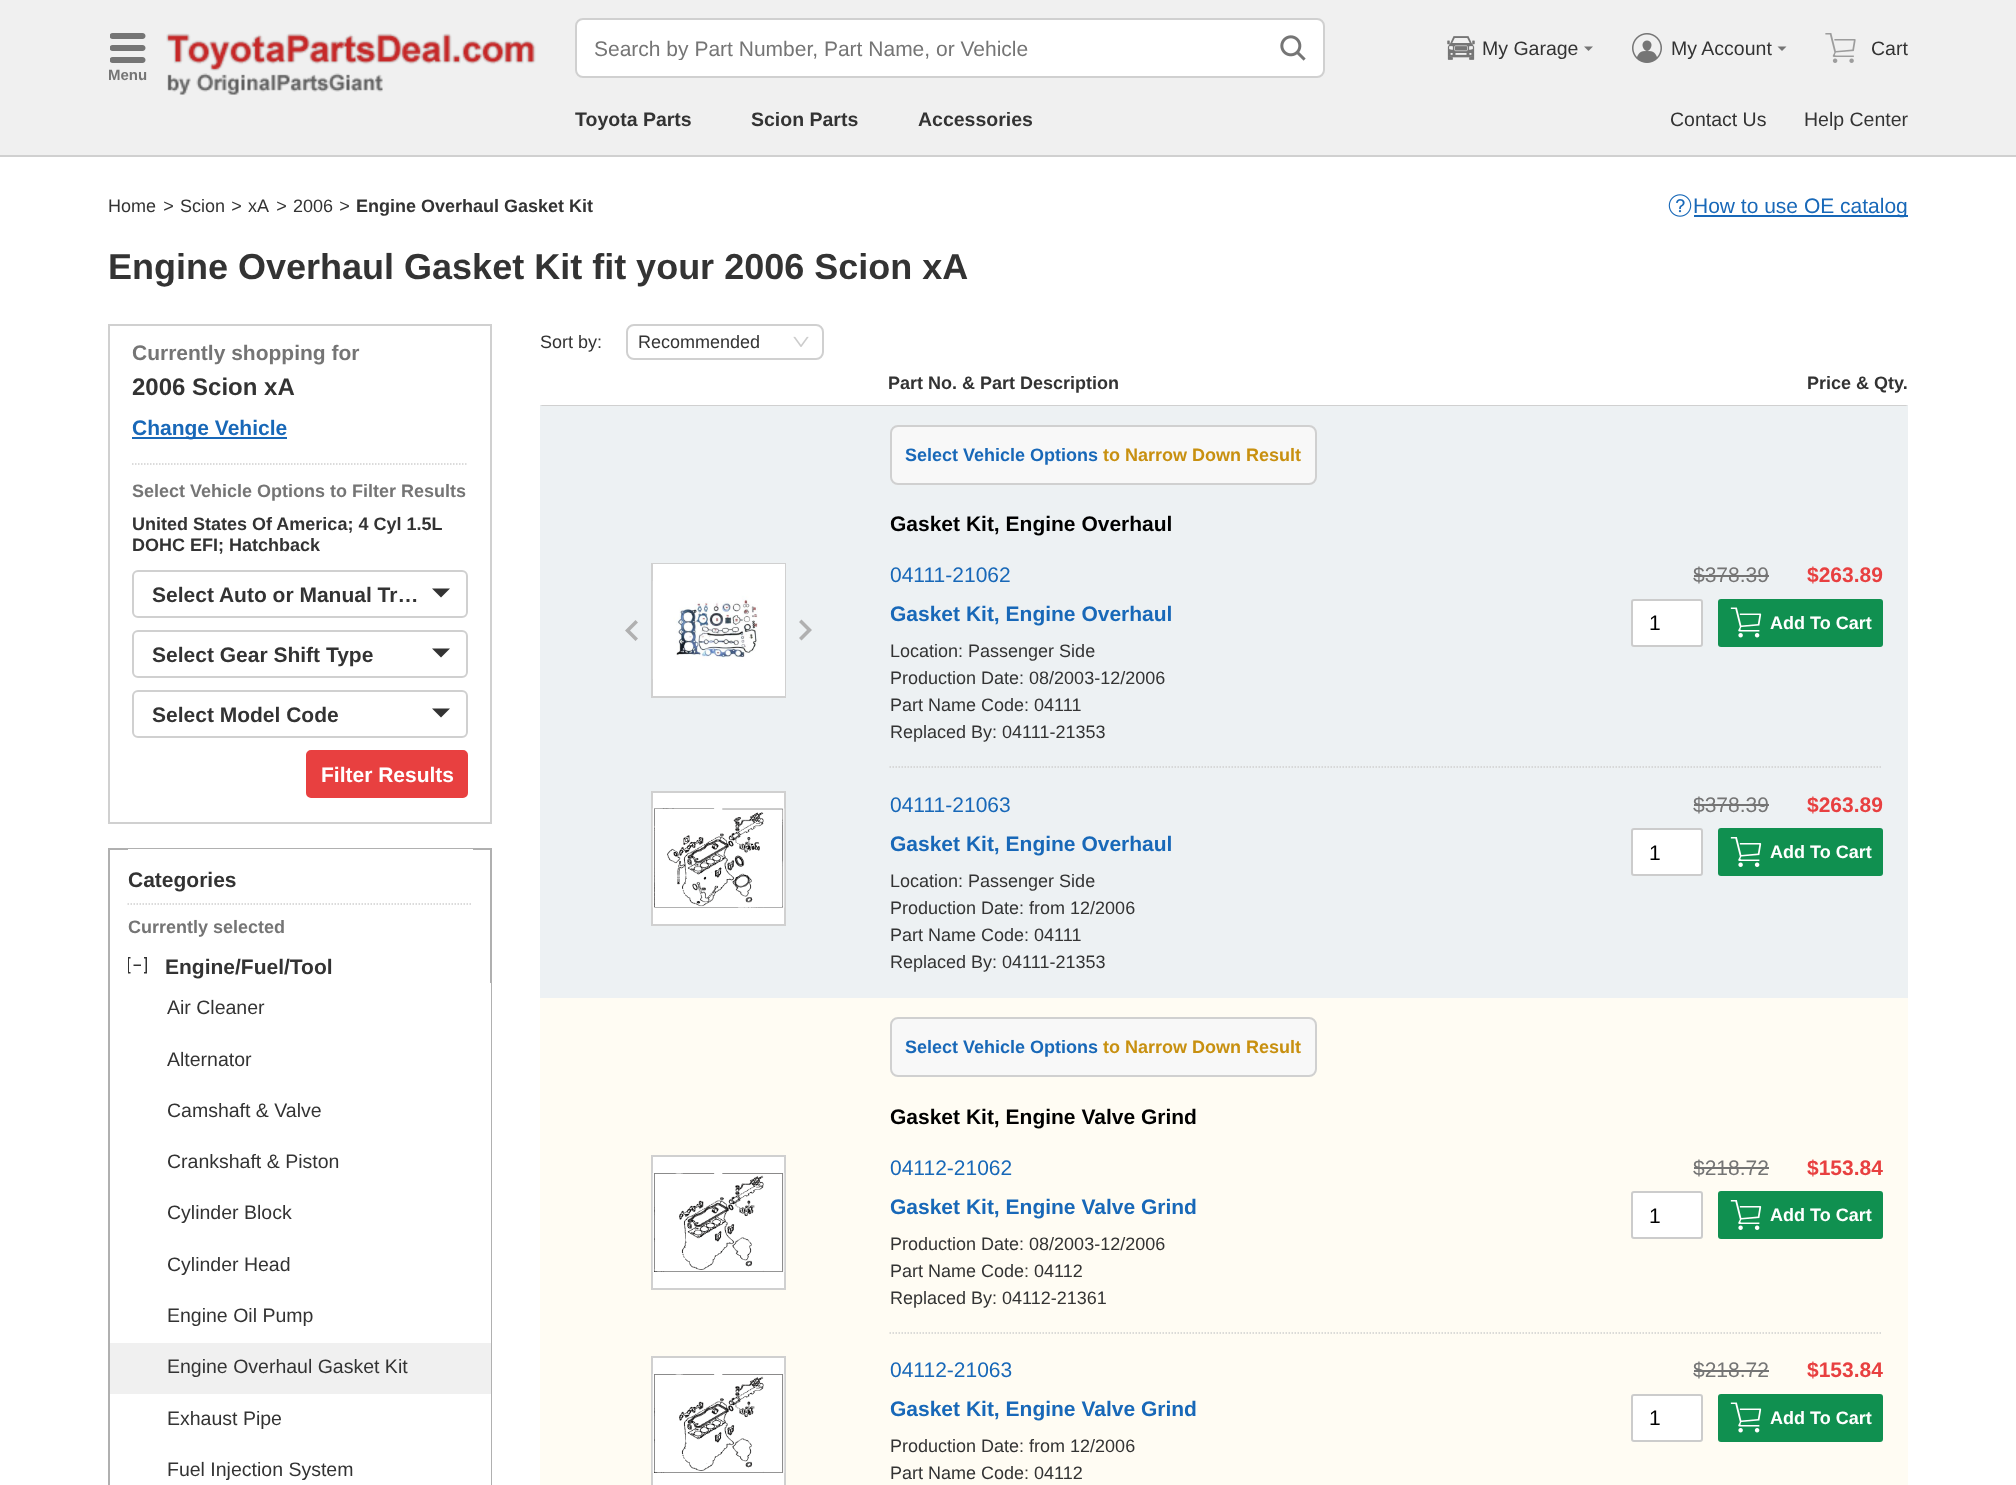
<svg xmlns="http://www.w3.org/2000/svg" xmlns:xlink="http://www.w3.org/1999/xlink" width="2016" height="1485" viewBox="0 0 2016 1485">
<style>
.cls-1{font:21px Liberation Sans;fill:#757575}
.cls-2{font:19.5px Liberation Sans;fill:#333333}
.cls-3{font:bold 15px Liberation Sans;fill:#757575}
.cls-4{font:bold 19.5px Liberation Sans;fill:#333333}
.cls-5{font:21px Liberation Sans;fill:#1868b8}
.cls-6{font:bold 21px Liberation Sans;fill:#757575}
.cls-7{font:bold 24px Liberation Sans;fill:#333333}
.cls-8{font:bold 21px Liberation Sans;fill:#1868b8}
.cls-9{font:bold 18px Liberation Sans;fill:#757575}
.cls-10{font:bold 18px Liberation Sans;fill:#333333}
.cls-11{font:bold 21px Liberation Sans;fill:#333333}
.cls-12{font:bold 21px Liberation Sans;fill:#ffffff}
.cls-13{font:18px Liberation Sans;fill:#333333}
.cls-14{font:bold 18px Liberation Sans;fill:#1868b8}
.cls-15{font:bold 18px Liberation Sans;fill:#c89010}
.cls-16{font:bold 21px Liberation Sans;fill:#000000}
.cls-17{font:bold 21px Liberation Sans;fill:#e84040}
.cls-18{font:21px Liberation Sans;fill:#000000}
.cls-19{font:bold 18px Liberation Sans;fill:#ffffff}
.cls-20{font:italic 18px Liberation Sans;fill:#333333}
.cls-21{font:bold 36px Liberation Sans;fill:#333333}
</style>
<defs>
<clipPath id="clip1"><rect x="594" y="36" width="611" height="24"/></clipPath>
</defs>
<rect width="100%" height="100%" fill="#ffffff"/>
<rect fill="#f0f0f0" x="0" y="0" width="2016" height="155"/>
<rect fill="#d0d0d0" x="0" y="155" width="2016" height="2"/>
<rect fill="#ffffff" stroke="#d0d0d0" stroke-width="2" x="576" y="19" width="748" height="58" rx="7"/>
<image xlink:href="image0.png" x="1280" y="35" width="26" height="26"/>
<image xlink:href="image1.png" x="1447" y="36" width="28" height="24"/>
<path fill="#757575" d="M1584 46.5H1593L1588.5 51Z"/>
<image xlink:href="image2.png" x="1632" y="33" width="30" height="30"/>
<path fill="#757575" d="M1777.5 46.5H1786.5L1782 51Z"/>
<image xlink:href="image3.png" x="1825" y="33" width="31" height="30"/>
<image xlink:href="image4.png" x="110" y="33" width="36" height="30"/>
<image xlink:href="image5.png" x="166" y="33" width="370" height="38"/>
<image xlink:href="image6.png" x="167" y="73" width="216" height="22"/>
<image xlink:href="image7.png" x="1668" y="194" width="24" height="23"/>
<rect fill="#1868b8" x="1694" y="215" width="214" height="2"/>
<rect fill="none" stroke="#d0d0d0" stroke-width="2" x="109" y="325" width="382" height="498"/>
<rect fill="#1868b8" x="132" y="437" width="155" height="2"/>
<path fill="none" stroke="#d0d0d0" stroke-width="1.5" stroke-dasharray="1.5 1.5" d="M132 464H468"/>
<rect fill="none" stroke="#d0d0d0" stroke-width="2" x="133" y="571" width="334" height="46" rx="5"/>
<path fill="#333333" d="M432 588.5H450L441 597.5Z"/>
<rect fill="none" stroke="#d0d0d0" stroke-width="2" x="133" y="631" width="334" height="46" rx="5"/>
<path fill="#333333" d="M432 648.5H450L441 657.5Z"/>
<rect fill="none" stroke="#d0d0d0" stroke-width="2" x="133" y="691" width="334" height="46" rx="5"/>
<path fill="#333333" d="M432 708.5H450L441 717.5Z"/>
<rect fill="#e84040" stroke="#e84040" stroke-width="2" x="307" y="751" width="160" height="46" rx="4"/>
<rect fill="none" stroke="#b0b0b0" stroke-width="2" x="109" y="849" width="382" height="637"/>
<rect fill="#ffffff" x="128" y="849" width="345" height="1"/>
<path fill="none" stroke="#d0d0d0" stroke-width="1.5" stroke-dasharray="1.5 1.5" d="M127.5 904H472.5"/>
<image xlink:href="image8.png" x="128" y="957" width="19" height="17"/>
<rect fill="#ffffff" x="490" y="983" width="1" height="502"/>
<rect fill="#f0f0f0" x="110" y="1343" width="381" height="51"/>
<rect fill="none" stroke="#d0d0d0" stroke-width="2" x="627" y="325" width="196" height="34" rx="7"/>
<image xlink:href="image9.png" x="793" y="336" width="16" height="11"/>
<rect fill="#edf1f3" x="540" y="405" width="1368" height="593"/>
<path fill="#d0d0d0" d="M540 405H1908L1906 406H542Z"/>
<rect fill="#f8f8f8" stroke="#d0d0d0" stroke-width="2" x="891" y="426" width="425" height="58" rx="7"/>
<path fill="#b0b0b0" fill-rule="evenodd" d="M635.5 641L625 630.5L635.5 620L638 622.5L630 630.5L638 638.5Z"/>
<rect fill="none" stroke="#d0d0d0" stroke-width="2" x="652" y="564" width="133" height="133"/>
<rect fill="#ffffff" x="653" y="564" width="132" height="132"/>
<image xlink:href="image10.png" x="652" y="581" width="106" height="98"/>
<path fill="#b0b0b0" fill-rule="evenodd" d="M801.5 619.5L812 630L801.5 640.5L799 638L807 630L799 622Z"/>
<rect fill="#757575" x="1694" y="575" width="75" height="2"/>
<rect fill="#ffffff" stroke="#cccccc" stroke-width="2" x="1632" y="600" width="70" height="46" rx="2"/>
<rect fill="#109050" x="1718" y="599" width="165" height="48" rx="3"/>
<image xlink:href="image11.png" x="1730" y="607" width="32" height="31"/>
<rect fill="#ffffff" stroke="#d0d0d0" stroke-width="2" x="652" y="792" width="133" height="133"/>
<image xlink:href="image12.png" x="652" y="808" width="133" height="100"/>
<path fill="none" stroke="#d0d0d0" stroke-width="1.5" stroke-dasharray="1.5 1.5" d="M889.5 767H1882.5"/>
<rect fill="#757575" x="1694" y="804" width="75" height="2"/>
<rect fill="#ffffff" stroke="#cccccc" stroke-width="2" x="1632" y="829" width="70" height="46" rx="2"/>
<rect fill="#109050" x="1718" y="828" width="165" height="48" rx="3"/>
<image xlink:href="image13.png" x="1730" y="837" width="32" height="30"/>
<rect fill="#fffcf3" x="540" y="998" width="1368" height="487"/>
<rect fill="#f8f8f8" stroke="#d0d0d0" stroke-width="2" x="891" y="1018" width="425" height="58" rx="7"/>
<rect fill="#ffffff" stroke="#d0d0d0" stroke-width="2" x="652" y="1156" width="133" height="133"/>
<image xlink:href="image14.png" x="652" y="1173" width="133" height="99"/>
<rect fill="#757575" x="1694" y="1167" width="75" height="2"/>
<rect fill="#ffffff" stroke="#cccccc" stroke-width="2" x="1632" y="1192" width="70" height="46" rx="2"/>
<rect fill="#109050" x="1718" y="1191" width="165" height="48" rx="3"/>
<image xlink:href="image13.png" x="1730" y="1200" width="32" height="30"/>
<rect fill="#ffffff" stroke="#d0d0d0" stroke-width="2" x="652" y="1357" width="133" height="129"/>
<image xlink:href="image14.png" x="652" y="1374" width="133" height="99"/>
<path fill="none" stroke="#d0d0d0" stroke-width="1.5" stroke-dasharray="1.5 1.5" d="M889.5 1333H1882.5"/>
<rect fill="#757575" x="1694" y="1370" width="75" height="2"/>
<rect fill="#ffffff" stroke="#cccccc" stroke-width="2" x="1632" y="1395" width="70" height="46" rx="2"/>
<rect fill="#109050" x="1718" y="1394" width="165" height="48" rx="3"/>
<image xlink:href="image11.png" x="1730" y="1402" width="32" height="31"/>
<g clip-path="url(#clip1)">
<text class="cls-1" x="594" y="56">Search by Part Number, Part Name, or Vehicle</text>
</g>
<text class="cls-2" x="1482" y="55">My Garage</text>
<text class="cls-2" x="1671" y="55">My Account</text>
<text class="cls-2" x="1871" y="55">Cart</text>
<text class="cls-3" x="108" y="80">Menu</text>
<text class="cls-4" x="575" y="126">Toyota Parts</text>
<text class="cls-4" x="751" y="126">Scion Parts</text>
<text class="cls-4" x="918" y="126">Accessories</text>
<text class="cls-2" x="1670" y="126">Contact Us</text>
<text class="cls-2" x="1804" y="126">Help Center</text>
<text class="cls-5" x="1693" y="213">How to use OE catalog</text>
<text class="cls-6" x="132" y="360">Currently shopping for</text>
<text class="cls-7" x="132" y="395">2006 Scion xA</text>
<text class="cls-8" x="132" y="435">Change Vehicle</text>
<text class="cls-9" x="132" y="497">Select Vehicle Options to Filter Results</text>
<text class="cls-10"><tspan x="132" y="530">United States Of America; 4 Cyl 1.5L</tspan><tspan x="132" y="551">DOHC EFI; Hatchback</tspan></text>
<text class="cls-11" x="152" y="602">Select Auto or Manual Tr…</text>
<text class="cls-11" x="152" y="662">Select Gear Shift Type</text>
<text class="cls-11" x="152" y="722">Select Model Code</text>
<text class="cls-12" x="321" y="782">Filter Results</text>
<text class="cls-11" x="128" y="887">Categories</text>
<text class="cls-9" x="128" y="933">Currently selected</text>
<text class="cls-11" x="165" y="974">Engine/Fuel/Tool</text>
<text class="cls-2" x="167" y="1014">Air Cleaner</text>
<text class="cls-2" x="167" y="1066">Alternator</text>
<text class="cls-2" x="167" y="1117">Camshaft &amp; Valve</text>
<text class="cls-2" x="167" y="1168">Crankshaft &amp; Piston</text>
<text class="cls-2" x="167" y="1219">Cylinder Block</text>
<text class="cls-2" x="167" y="1271">Cylinder Head</text>
<text class="cls-2" x="167" y="1322">Engine Oil Pump</text>
<text class="cls-2" x="167" y="1373">Engine Overhaul Gasket Kit</text>
<text class="cls-2" x="167" y="1425">Exhaust Pipe</text>
<text class="cls-2" x="167" y="1476">Fuel Injection System</text>
<text class="cls-13" x="540" y="348">Sort by:</text>
<text class="cls-13" x="638" y="348">Recommended</text>
<text class="cls-10" x="888" y="389">Part No. &amp; Part Description</text>
<text class="cls-10" x="1807" y="389">Price &amp; Qty.</text>
<text class="cls-14" x="905" y="461">Select Vehicle Options</text>
<text class="cls-15" x="1103" y="461">to Narrow Down Result</text>
<text class="cls-16" x="890" y="531">Gasket Kit, Engine Overhaul</text>
<text class="cls-5" x="890" y="582">04111-21062</text>
<text class="cls-8" x="890" y="621">Gasket Kit, Engine Overhaul</text>
<text class="cls-13"><tspan x="890" y="657">Location: Passenger Side</tspan><tspan x="890" y="684">Production Date: 08/2003-12/2006</tspan><tspan x="890" y="711">Part Name Code: 04111</tspan><tspan x="890" y="738">Replaced By: 04111-21353</tspan></text>
<text class="cls-1" x="1693" y="582">$378.39</text>
<text class="cls-17" x="1807" y="582">$263.89</text>
<text class="cls-18" x="1649" y="630">1</text>
<text class="cls-19" x="1770" y="629">Add To Cart</text>
<text class="cls-5" x="890" y="812">04111-21063</text>
<text class="cls-8" x="890" y="851">Gasket Kit, Engine Overhaul</text>
<text class="cls-13"><tspan x="890" y="887">Location: Passenger Side</tspan><tspan x="890" y="914">Production Date: from 12/2006</tspan><tspan x="890" y="941">Part Name Code: 04111</tspan><tspan x="890" y="968">Replaced By: 04111-21353</tspan></text>
<text class="cls-1" x="1693" y="812">$378.39</text>
<text class="cls-17" x="1807" y="812">$263.89</text>
<text class="cls-18" x="1649" y="860">1</text>
<text class="cls-19" x="1770" y="858">Add To Cart</text>
<text class="cls-14" x="905" y="1053">Select Vehicle Options</text>
<text class="cls-15" x="1103" y="1053">to Narrow Down Result</text>
<text class="cls-16" x="890" y="1124">Gasket Kit, Engine Valve Grind</text>
<text class="cls-5" x="890" y="1175">04112-21062</text>
<text class="cls-8" x="890" y="1214">Gasket Kit, Engine Valve Grind</text>
<text class="cls-13"><tspan x="890" y="1250">Production Date: 08/2003-12/2006</tspan><tspan x="890" y="1277">Part Name Code: 04112</tspan><tspan x="890" y="1304">Replaced By: 04112-21361</tspan></text>
<text class="cls-1" x="1693" y="1175">$218.72</text>
<text class="cls-17" x="1807" y="1175">$153.84</text>
<text class="cls-18" x="1649" y="1223">1</text>
<text class="cls-19" x="1770" y="1221">Add To Cart</text>
<text class="cls-5" x="890" y="1377">04112-21063</text>
<text class="cls-8" x="890" y="1416">Gasket Kit, Engine Valve Grind</text>
<text class="cls-13"><tspan x="890" y="1452">Production Date: from 12/2006</tspan><tspan x="890" y="1479">Part Name Code: 04112</tspan></text>
<text class="cls-1" x="1693" y="1377">$218.72</text>
<text class="cls-17" x="1807" y="1377">$153.84</text>
<text class="cls-18" x="1649" y="1425">1</text>
<text class="cls-19" x="1770" y="1424">Add To Cart</text>
<text class="cls-13" x="108" y="212">Home</text>
<text class="cls-20" x="163" y="212">&gt;</text>
<text class="cls-13" x="180" y="212">Scion</text>
<text class="cls-20" x="231" y="212">&gt;</text>
<text class="cls-13" x="248" y="212">xA</text>
<text class="cls-20" x="276" y="212">&gt;</text>
<text class="cls-13" x="293" y="212">2006</text>
<text class="cls-20" x="339" y="212">&gt;</text>
<text class="cls-10" x="356" y="212">Engine Overhaul Gasket Kit</text>
<text class="cls-21" x="108" y="279">Engine Overhaul Gasket Kit fit your 2006 Scion xA</text>
</svg>
